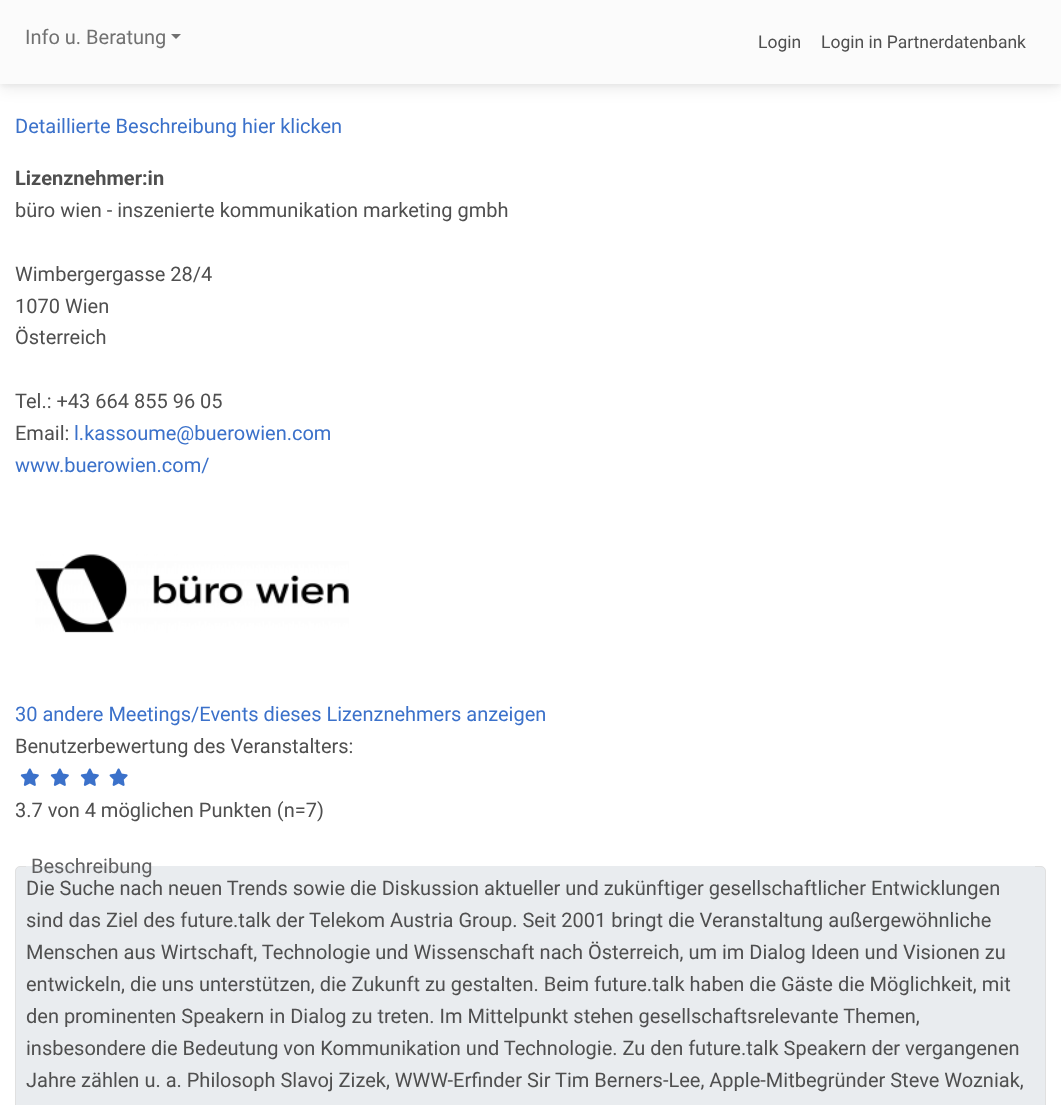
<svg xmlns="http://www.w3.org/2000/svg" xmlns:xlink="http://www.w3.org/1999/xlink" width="1061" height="1105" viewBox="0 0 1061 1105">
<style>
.cls-1{font:20px Roboto;fill:#717171}
.cls-2{font:17.5px Roboto;fill:#4f4f4f}
.cls-3{font:20px Roboto;fill:#3b71ca}
.cls-4{font:bold 20px Roboto;fill:#4f4f4f}
.cls-5{font:20px Roboto;fill:#4f4f4f}
.cls-6{font:20px Roboto;fill:#616162}
</style>
<rect width="100%" height="100%" fill="#ffffff"/>
<rect fill="#000000" fill-opacity="0.05" filter="blur(2.5px)" x="0" y="3" width="1061" height="83"/>
<rect fill="#000000" fill-opacity="0.07" filter="blur(7.5px)" x="0" y="5" width="1061" height="84"/>
<rect fill="#fbfbfb" x="0" y="0" width="1061" height="84"/>
<path fill="#717171" d="M171 34H181L176 39Z"/>
<image xlink:href="image0.png" x="35" y="554" width="314" height="79"/>
<image xlink:href="image1.png" x="20" y="768" width="19" height="18"/>
<image xlink:href="image1.png" x="50" y="768" width="19" height="18"/>
<image xlink:href="image1.png" x="80" y="768" width="19" height="18"/>
<image xlink:href="image2.png" x="109" y="768" width="19" height="18"/>
<rect fill="#e9ecef" stroke="#e0e0e0" x="15.5" y="866.5" width="1030" height="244" rx="4.5"/>
<rect fill="#e9ecef" x="26" y="866" width="1009" height="1"/>
<text class="cls-1" x="25" y="44">Info u. Beratung</text>
<text class="cls-2" x="758" y="48">Login</text>
<text class="cls-2" x="821" y="48">Login in Partnerdatenbank</text>
<text class="cls-3" x="15" y="133">Detaillierte Beschreibung hier klicken</text>
<text class="cls-4" x="15" y="185">Lizenznehmer:in</text>
<text class="cls-5" x="15" y="217">büro wien - inszenierte kommunikation marketing gmbh</text>
<text class="cls-5"><tspan x="15" y="281">Wimbergergasse 28/4</tspan><tspan x="15" y="313">1070 Wien</tspan><tspan x="15" y="344">Österreich</tspan></text>
<text class="cls-5"><tspan x="15" y="408">Tel.: +43 664 855 96 05</tspan><tspan x="15" y="440">Email:</tspan></text>
<text class="cls-3" x="74" y="440">l.kassoume@buerowien.com</text>
<text class="cls-3" x="15" y="472">www.buerowien.com/</text>
<text class="cls-3" x="15" y="721">30 andere Meetings/Events dieses Lizenznehmers anzeigen</text>
<text class="cls-5" x="15" y="753">Benutzerbewertung des Veranstalters:</text>
<text class="cls-5" x="15" y="817">3.7 von 4 möglichen Punkten (n=7)</text>
<text class="cls-6" x="31" y="873">Beschreibung</text>
<text class="cls-5"><tspan x="26" y="895">Die Suche nach neuen Trends sowie die Diskussion aktueller und zukünftiger gesellschaftlicher Entwicklungen</tspan><tspan x="26" y="927">sind das Ziel des future.talk der Telekom Austria Group. Seit 2001 bringt die Veranstaltung außergewöhnliche</tspan><tspan x="26" y="959">Menschen aus Wirtschaft, Technologie und Wissenschaft nach Österreich, um im Dialog Ideen und Visionen zu</tspan><tspan x="26" y="991">entwickeln, die uns unterstützen, die Zukunft zu gestalten. Beim future.talk haben die Gäste die Möglichkeit, mit</tspan><tspan x="26" y="1023">den prominenten Speakern in Dialog zu treten. Im Mittelpunkt stehen gesellschaftsrelevante Themen,</tspan><tspan x="26" y="1055">insbesondere die Bedeutung von Kommunikation und Technologie. Zu den future.talk Speakern der vergangenen</tspan><tspan x="26" y="1087">Jahre zählen u. a. Philosoph Slavoj Zizek, WWW-Erfinder Sir Tim Berners-Lee, Apple-Mitbegründer Steve Wozniak,</tspan></text>
</svg>
